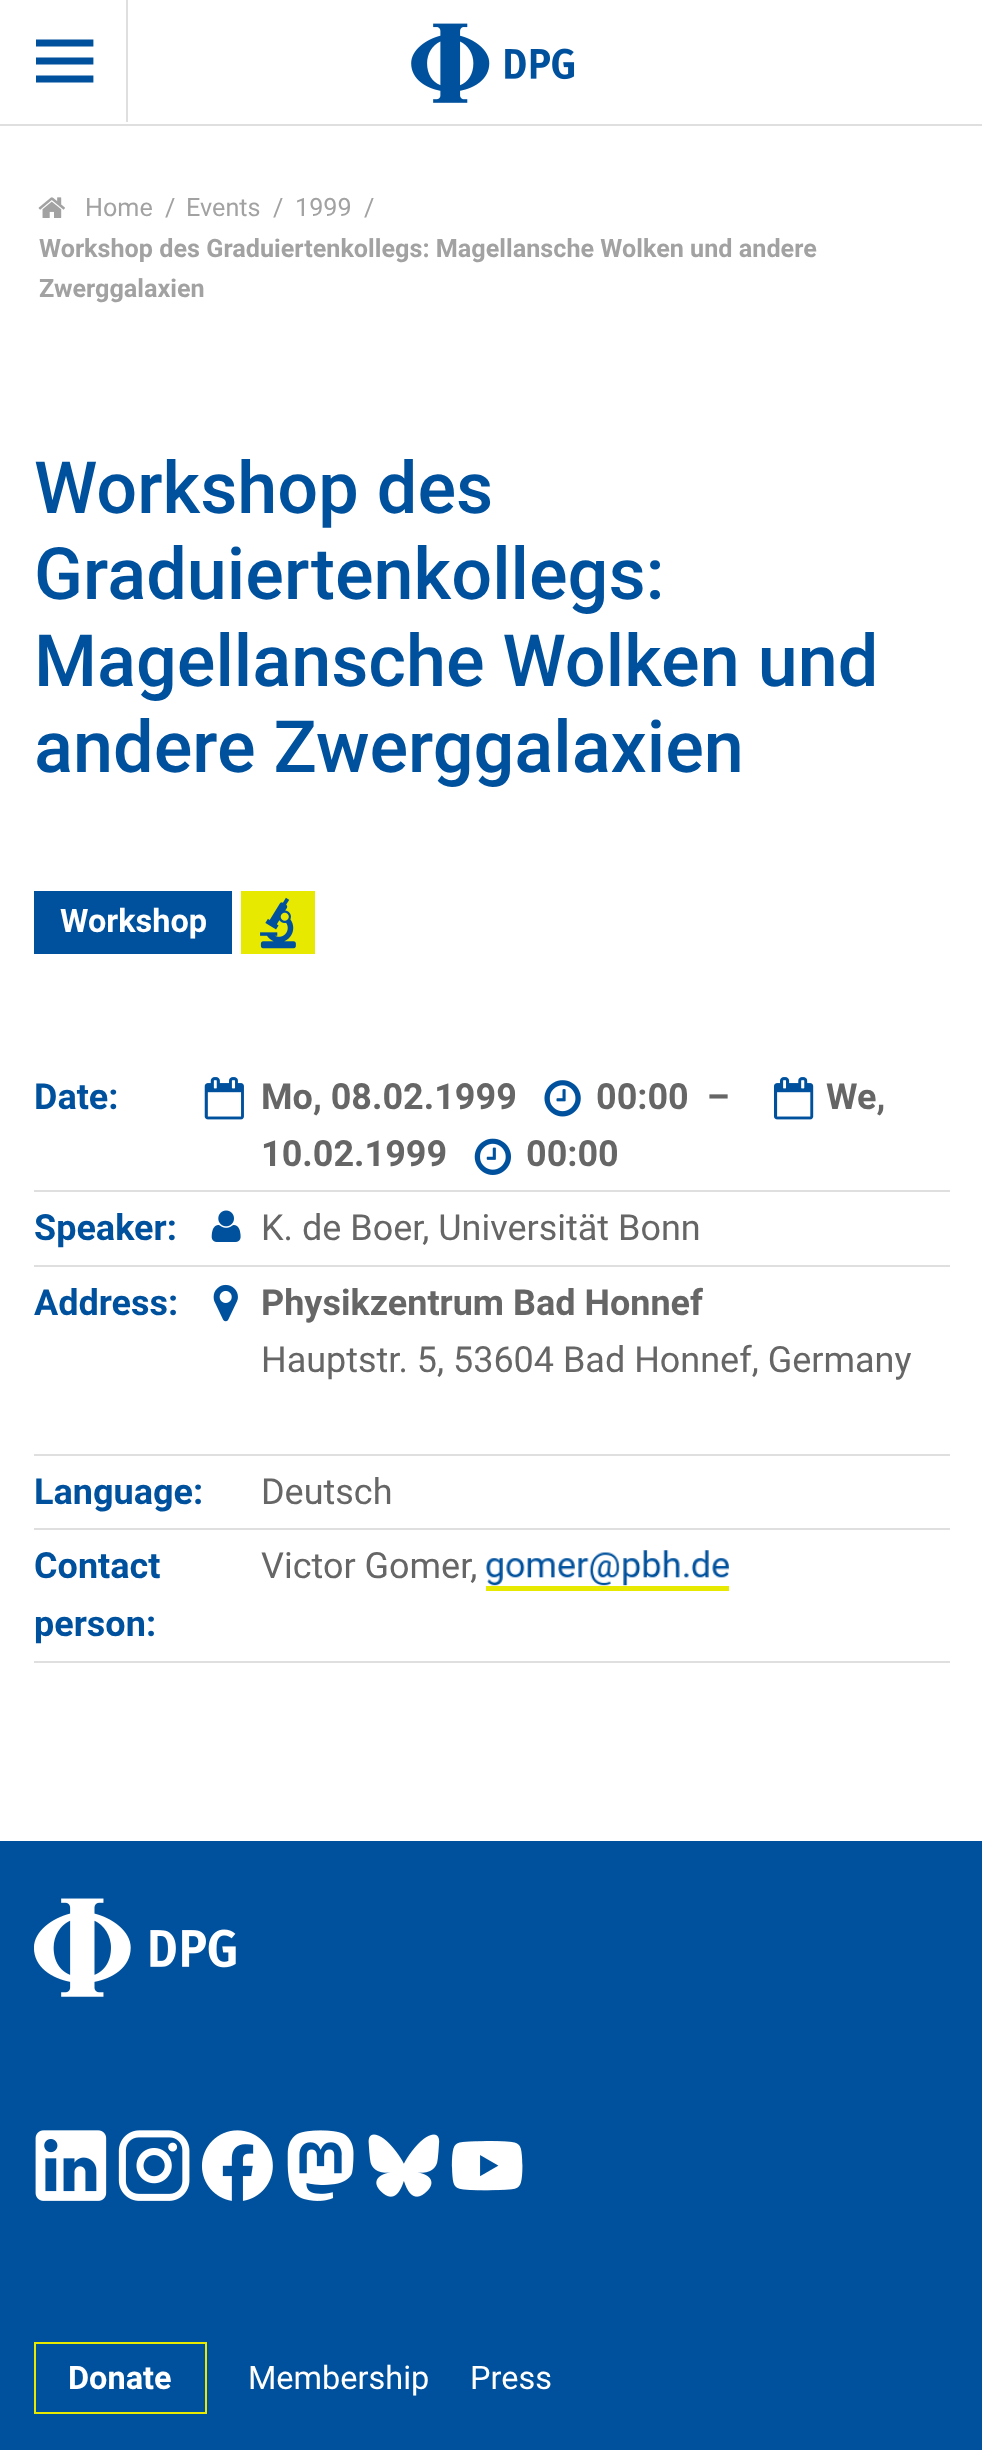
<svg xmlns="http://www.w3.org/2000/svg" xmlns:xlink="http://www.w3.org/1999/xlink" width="982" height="2450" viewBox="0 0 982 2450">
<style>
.cls-1{font:25.2px Roboto;fill:#a2a2a2}
.cls-2{font:bold 25.2px Roboto;fill:#a2a2a2}
.cls-3{font:500 72px Roboto;fill:#00519d}
.cls-4{font:bold 32.5px Roboto;fill:#ffffff}
.cls-5{font:bold 36px Roboto;fill:#00519d}
.cls-6{font:bold 36px Roboto;fill:#666666}
.cls-7{font:36px Roboto;fill:#666666}
.cls-8{font:32.5px Roboto;fill:#ffffff}
</style>
<defs>
<clipPath id="clip1"><rect x="36" y="32" width="59" height="58"/></clipPath>
</defs>
<rect width="100%" height="100%" fill="#ffffff"/>
<rect fill="#dfdfdf" x="0" y="124" width="982" height="2"/>
<rect fill="#dfdfdf" x="126" y="0" width="2" height="122"/>
<g clip-path="url(#clip1)">
<path fill="none" stroke="#00519d" stroke-width="6.8" stroke-linecap="square" d="M38 43H90M38 61H90M38 79H90"/>
</g>
<image xlink:href="image0.png" x="411" y="23" width="164" height="80"/>
<image xlink:href="image1.png" x="38" y="197" width="27" height="21"/>
<rect fill="#00519d" x="34" y="891" width="198" height="63"/>
<rect fill="#e8e900" x="241" y="891" width="74" height="63"/>
<image xlink:href="image2.png" x="260" y="897" width="36" height="52"/>
<rect fill="#dfdfdf" x="34" y="1190" width="916" height="2"/>
<image xlink:href="image3.png" x="204" y="1077" width="40" height="43"/>
<image xlink:href="image4.png" x="544" y="1080" width="37" height="37"/>
<image xlink:href="image5.png" x="773" y="1077" width="41" height="43"/>
<image xlink:href="image6.png" x="474" y="1138" width="37" height="37"/>
<rect fill="#dfdfdf" x="34" y="1265" width="916" height="2"/>
<image xlink:href="image7.png" x="211" y="1210" width="30" height="32"/>
<rect fill="#dfdfdf" x="34" y="1454" width="916" height="2"/>
<image xlink:href="image8.png" x="213" y="1284" width="25" height="38"/>
<rect fill="#dfdfdf" x="34" y="1528" width="916" height="2"/>
<rect fill="#dfdfdf" x="34" y="1661" width="916" height="2"/>
<image xlink:href="image9.png" x="486" y="1550" width="243" height="36"/>
<rect fill="#e8e900" x="486" y="1586" width="243" height="5"/>
<rect fill="#00519d" x="0" y="1841" width="982" height="609"/>
<image xlink:href="image10.png" x="34" y="1898" width="202" height="99"/>
<image xlink:href="image11.png" x="35" y="2130" width="72" height="71"/>
<image xlink:href="image12.png" x="118" y="2130" width="72" height="71"/>
<image xlink:href="image13.png" x="201" y="2130" width="72" height="71"/>
<image xlink:href="image14.png" x="287" y="2130" width="67" height="71"/>
<image xlink:href="image15.png" x="368" y="2134" width="72" height="63"/>
<image xlink:href="image16.png" x="451" y="2141" width="72" height="50"/>
<rect fill="none" stroke="#e8e900" stroke-width="2" x="35" y="2343" width="171" height="70"/>
<text class="cls-1" x="85" y="216">Home</text>
<text class="cls-1" x="165" y="216">/</text>
<text class="cls-1" x="186" y="216">Events</text>
<text class="cls-1" x="273" y="216">/</text>
<text class="cls-1" x="295" y="216">1999</text>
<text class="cls-1" x="364" y="216">/</text>
<text class="cls-2"><tspan x="39" y="257">Workshop des Graduiertenkollegs: Magellansche Wolken und andere</tspan><tspan x="39" y="297">Zwerggalaxien</tspan></text>
<text class="cls-3"><tspan x="34" y="513">Workshop des</tspan><tspan x="34" y="599">Graduiertenkollegs:</tspan><tspan x="34" y="686">Magellansche Wolken und</tspan><tspan x="34" y="772">andere Zwerggalaxien</tspan></text>
<text class="cls-4" x="60" y="932">Workshop</text>
<text class="cls-5" x="34" y="1109">Date:</text>
<text class="cls-6" x="261" y="1109">Mo, 08.02.1999</text>
<text class="cls-6" xml:space="preserve" x="596" y="1109">00:00  –</text>
<text class="cls-6" x="826" y="1109">We,</text>
<text class="cls-6" x="261" y="1166">10.02.1999</text>
<text class="cls-6" x="526" y="1166">00:00</text>
<text class="cls-5" x="34" y="1240">Speaker:</text>
<text class="cls-7" x="261" y="1240">K. de Boer, Universität Bonn</text>
<text class="cls-5" x="34" y="1315">Address:</text>
<text class="cls-6" x="261" y="1315">Physikzentrum Bad Honnef</text>
<text class="cls-7" x="261" y="1372">Hauptstr. 5, 53604 Bad Honnef, Germany</text>
<text class="cls-5" x="34" y="1504">Language:</text>
<text class="cls-7" x="261" y="1504">Deutsch</text>
<text class="cls-5"><tspan x="34" y="1578">Contact</tspan><tspan x="34" y="1636">person:</tspan></text>
<text class="cls-7" x="261" y="1578">Victor Gomer,</text>
<text class="cls-4" x="68" y="2389">Donate</text>
<text class="cls-8" x="248" y="2389">Membership</text>
<text class="cls-8" x="470" y="2389">Press</text>
</svg>
